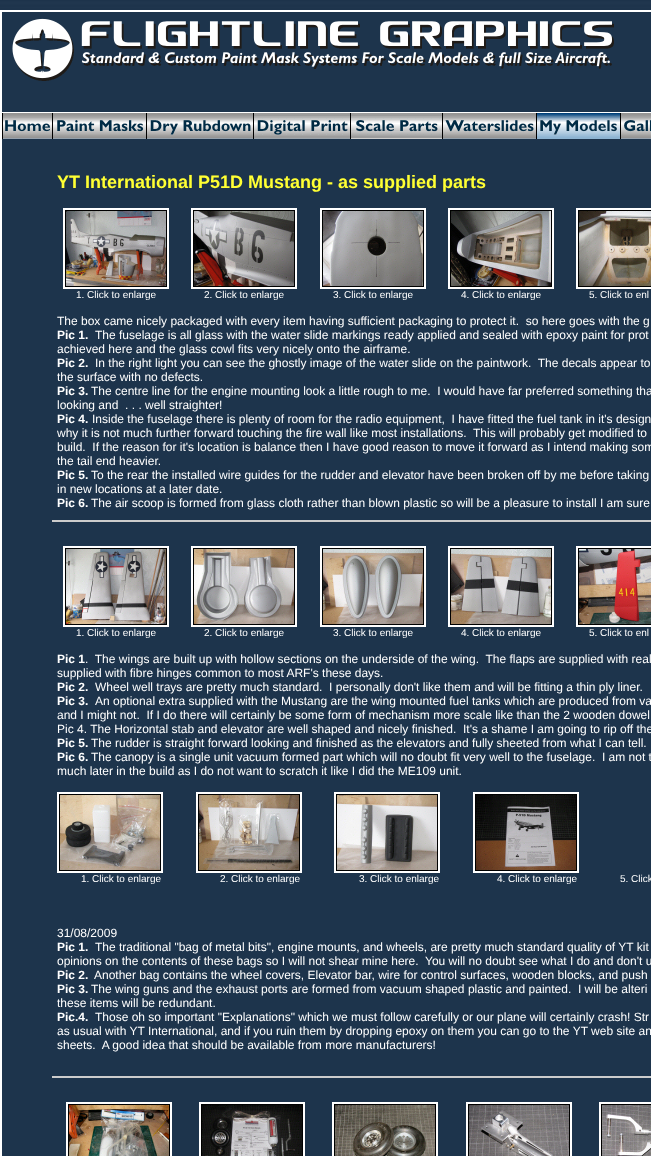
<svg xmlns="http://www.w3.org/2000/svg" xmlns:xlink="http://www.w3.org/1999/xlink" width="651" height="1156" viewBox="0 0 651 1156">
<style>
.cls-1{font:bold 18px Liberation Sans;fill:#ffff33}
.cls-2{font:10px Liberation Sans;fill:#ffffff}
.cls-3{font:12px Liberation Sans;fill:#ffffff}
.cls-4{font:bold 12px Liberation Sans;fill:#ffffff}
</style>
<rect width="100%" height="100%" fill="#ffffff"/>
<image xlink:href="image0.png" x="0" y="0" width="651" height="10"/>
<rect fill="#1d344c" x="2" y="12" width="649" height="1144"/>
<rect fill="#ffffff" x="2" y="112" width="649" height="1"/>
<image xlink:href="image1.png" x="12" y="18" width="602" height="63"/>
<image xlink:href="image2.png" x="53" y="113" width="598" height="6"/>
<rect fill="#000000" x="52" y="113" width="1" height="26"/>
<image xlink:href="image3.png" x="2" y="113" width="50" height="26"/>
<rect fill="#000000" x="146" y="113" width="1" height="26"/>
<image xlink:href="image4.png" x="53" y="119" width="93" height="20"/>
<rect fill="#000000" x="253" y="113" width="1" height="26"/>
<image xlink:href="image5.png" x="147" y="119" width="106" height="20"/>
<rect fill="#000000" x="350" y="113" width="1" height="26"/>
<image xlink:href="image6.png" x="254" y="113" width="96" height="26"/>
<rect fill="#000000" x="442" y="113" width="1" height="26"/>
<image xlink:href="image7.png" x="351" y="113" width="91" height="26"/>
<rect fill="#000000" x="536" y="113" width="1" height="26"/>
<image xlink:href="image8.png" x="443" y="119" width="93" height="20"/>
<rect fill="#000000" x="620" y="113" width="1" height="26"/>
<image xlink:href="image9.png" x="537" y="113" width="83" height="26"/>
<image xlink:href="image10.png" x="621" y="119" width="30" height="20"/>
<rect fill="#000000" stroke="#ffffff" stroke-width="2" x="64" y="209" width="104" height="79"/>
<image xlink:href="image11.png" x="66" y="211" width="100" height="75"/>
<rect fill="#000000" stroke="#ffffff" stroke-width="2" x="192" y="209" width="104" height="79"/>
<image xlink:href="image12.png" x="194" y="211" width="100" height="75"/>
<rect fill="#000000" stroke="#ffffff" stroke-width="2" x="321" y="209" width="104" height="79"/>
<image xlink:href="image13.png" x="323" y="211" width="100" height="75"/>
<rect fill="#000000" stroke="#ffffff" stroke-width="2" x="449" y="209" width="104" height="79"/>
<image xlink:href="image14.png" x="451" y="211" width="100" height="75"/>
<rect fill="#000000" stroke="#ffffff" stroke-width="2" x="577" y="209" width="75" height="79"/>
<image xlink:href="image15.png" x="579" y="211" width="72" height="75"/>
<rect fill="#cccccc" x="52" y="520" width="599" height="2"/>
<rect fill="#000000" stroke="#ffffff" stroke-width="2" x="64" y="547" width="104" height="79"/>
<image xlink:href="image16.png" x="66" y="549" width="100" height="75"/>
<rect fill="#000000" stroke="#ffffff" stroke-width="2" x="192" y="547" width="104" height="79"/>
<image xlink:href="image17.png" x="194" y="549" width="100" height="75"/>
<rect fill="#000000" stroke="#ffffff" stroke-width="2" x="321" y="547" width="104" height="79"/>
<image xlink:href="image18.png" x="323" y="549" width="100" height="75"/>
<rect fill="#000000" stroke="#ffffff" stroke-width="2" x="449" y="547" width="104" height="79"/>
<image xlink:href="image19.png" x="451" y="549" width="100" height="75"/>
<rect fill="#000000" stroke="#ffffff" stroke-width="2" x="577" y="547" width="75" height="79"/>
<image xlink:href="image20.png" x="579" y="549" width="72" height="75"/>
<rect fill="#000000" stroke="#ffffff" stroke-width="2" x="58" y="793" width="104" height="79"/>
<image xlink:href="image21.png" x="60" y="795" width="100" height="75"/>
<rect fill="#000000" stroke="#ffffff" stroke-width="2" x="197" y="793" width="104" height="79"/>
<image xlink:href="image22.png" x="199" y="795" width="100" height="75"/>
<rect fill="#000000" stroke="#ffffff" stroke-width="2" x="335" y="793" width="104" height="79"/>
<image xlink:href="image23.png" x="337" y="795" width="100" height="75"/>
<rect fill="#000000" stroke="#ffffff" stroke-width="2" x="474" y="793" width="104" height="79"/>
<image xlink:href="image24.png" x="476" y="795" width="100" height="75"/>
<rect fill="#cccccc" x="52" y="1076" width="599" height="2"/>
<rect fill="#000000" stroke="#ffffff" stroke-width="2" x="67" y="1103" width="104" height="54"/>
<image xlink:href="image25.png" x="69" y="1105" width="100" height="51"/>
<rect fill="#000000" stroke="#ffffff" stroke-width="2" x="200" y="1103" width="104" height="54"/>
<image xlink:href="image26.png" x="202" y="1105" width="100" height="51"/>
<rect fill="#000000" stroke="#ffffff" stroke-width="2" x="333" y="1103" width="104" height="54"/>
<image xlink:href="image27.png" x="335" y="1105" width="100" height="51"/>
<rect fill="#000000" stroke="#ffffff" stroke-width="2" x="467" y="1103" width="104" height="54"/>
<image xlink:href="image28.png" x="469" y="1105" width="100" height="51"/>
<rect fill="#000000" stroke="#ffffff" stroke-width="2" x="600" y="1103" width="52" height="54"/>
<image xlink:href="image29.png" x="602" y="1105" width="49" height="51"/>
<text class="cls-1" x="57" y="188">YT International P51D Mustang - as supplied parts</text>
<text class="cls-2" x="76" y="298">1. Click to enlarge</text>
<text class="cls-2" x="204" y="298">2. Click to enlarge</text>
<text class="cls-2" x="333" y="298">3. Click to enlarge</text>
<text class="cls-2" x="461" y="298">4. Click to enlarge</text>
<text class="cls-2" x="589" y="298">5. Click to enl</text>
<text class="cls-3" xml:space="preserve" x="57" y="325">The box came nicely packaged with every item having sufficient packaging to protect it.  so here goes with the g</text>
<text class="cls-4" x="57" y="339">Pic 1.</text>
<text class="cls-3" x="95" y="339">The fuselage is all glass with the water slide markings ready applied and sealed with epoxy paint for prot</text>
<text class="cls-3" x="57" y="353">achieved here and the glass cowl fits very nicely onto the airframe.</text>
<text class="cls-4" x="57" y="367">Pic 2.</text>
<text class="cls-3" xml:space="preserve" x="95" y="367">In the right light you can see the ghostly image of the water slide on the paintwork.  The decals appear to</text>
<text class="cls-3" x="57" y="381">the surface with no defects.</text>
<text class="cls-4" x="57" y="395">Pic 3.</text>
<text class="cls-3" xml:space="preserve" x="91" y="395">The centre line for the engine mounting look a little rough to me.  I would have far preferred something tha</text>
<text class="cls-3" xml:space="preserve" x="57" y="409">looking and  . . . well straighter!</text>
<text class="cls-4" x="57" y="423">Pic 4.</text>
<text class="cls-3" xml:space="preserve" x="92" y="423">Inside the fuselage there is plenty of room for the radio equipment,  I have fitted the fuel tank in it's design</text>
<text class="cls-3" xml:space="preserve"><tspan x="57" y="437">why it is not much further forward touching the fire wall like most installations.  This will probably get modified to</tspan><tspan x="57" y="451">build.  If the reason for it's location is balance then I have good reason to move it forward as I intend making som</tspan><tspan x="57" y="465">the tail end heavier.</tspan></text>
<text class="cls-4" x="57" y="479">Pic 5.</text>
<text class="cls-3" x="91" y="479">To the rear the installed wire guides for the rudder and elevator have been broken off by me before taking</text>
<text class="cls-3" x="57" y="493">in new locations at a later date.</text>
<text class="cls-4" x="57" y="507">Pic 6.</text>
<text class="cls-3" x="91" y="507">The air scoop is formed from glass cloth rather than blown plastic so will be a pleasure to install I am sure</text>
<text class="cls-2" x="76" y="636">1. Click to enlarge</text>
<text class="cls-2" x="204" y="636">2. Click to enlarge</text>
<text class="cls-2" x="333" y="636">3. Click to enlarge</text>
<text class="cls-2" x="461" y="636">4. Click to enlarge</text>
<text class="cls-2" x="589" y="636">5. Click to enl</text>
<text class="cls-4" x="57" y="663">Pic 1</text>
<text class="cls-3" xml:space="preserve" x="85" y="663">.  The wings are built up with hollow sections on the underside of the wing.  The flaps are supplied with real</text>
<text class="cls-3" x="57" y="677">supplied with fibre hinges common to most ARF's these days.</text>
<text class="cls-4" x="57" y="691">Pic 2.</text>
<text class="cls-3" xml:space="preserve" x="95" y="691">Wheel well trays are pretty much standard.  I personally don't like them and will be fitting a thin ply liner.</text>
<text class="cls-4" x="57" y="705">Pic 3.</text>
<text class="cls-3" x="95" y="705">An optional extra supplied with the Mustang are the wing mounted fuel tanks which are produced from va</text>
<text class="cls-3" xml:space="preserve"><tspan x="57" y="719">and I might not.  If I do there will certainly be some form of mechanism more scale like than the 2 wooden dowel</tspan><tspan x="57" y="733">Pic 4. The Horizontal stab and elevator are well shaped and nicely finished.  It's a shame I am going to rip off the</tspan></text>
<text class="cls-4" x="57" y="747">Pic 5.</text>
<text class="cls-3" x="91" y="747">The rudder is straight forward looking and finished as the elevators and fully sheeted from what I can tell.</text>
<text class="cls-4" x="57" y="761">Pic 6.</text>
<text class="cls-3" xml:space="preserve" x="91" y="761">The canopy is a single unit vacuum formed part which will no doubt fit very well to the fuselage.  I am not t</text>
<text class="cls-3" x="57" y="775">much later in the build as I do not want to scratch it like I did the ME109 unit.</text>
<text class="cls-2" x="81" y="882">1. Click to enlarge</text>
<text class="cls-2" x="220" y="882">2. Click to enlarge</text>
<text class="cls-2" x="359" y="882">3. Click to enlarge</text>
<text class="cls-2" x="497" y="882">4. Click to enlarge</text>
<text class="cls-2" x="620" y="882">5. Click</text>
<text class="cls-3" x="57" y="937">31/08/2009</text>
<text class="cls-4" x="57" y="951">Pic 1.</text>
<text class="cls-3" x="95" y="951">The traditional "bag of metal bits", engine mounts, and wheels, are pretty much standard quality of YT kit</text>
<text class="cls-3" xml:space="preserve" x="57" y="965">opinions on the contents of these bags so I will not shear mine here.  You will no doubt see what I do and don't u</text>
<text class="cls-4" x="57" y="979">Pic 2.</text>
<text class="cls-3" x="94" y="979">Another bag contains the wheel covers, Elevator bar, wire for control surfaces, wooden blocks, and push</text>
<text class="cls-4" x="57" y="993">Pic 3.</text>
<text class="cls-3" xml:space="preserve" x="91" y="993">The wing guns and the exhaust ports are formed from vacuum shaped plastic and painted.  I will be alteri</text>
<text class="cls-3" x="57" y="1007">these items will be redundant.</text>
<text class="cls-4" x="57" y="1021">Pic.4.</text>
<text class="cls-3" x="95" y="1021">Those oh so important "Explanations" which we must follow carefully or our plane will certainly crash! Str</text>
<text class="cls-3" xml:space="preserve"><tspan x="57" y="1035">as usual with YT International, and if you ruin them by dropping epoxy on them you can go to the YT web site an</tspan><tspan x="57" y="1049">sheets.  A good idea that should be available from more manufacturers!</tspan></text>
</svg>
